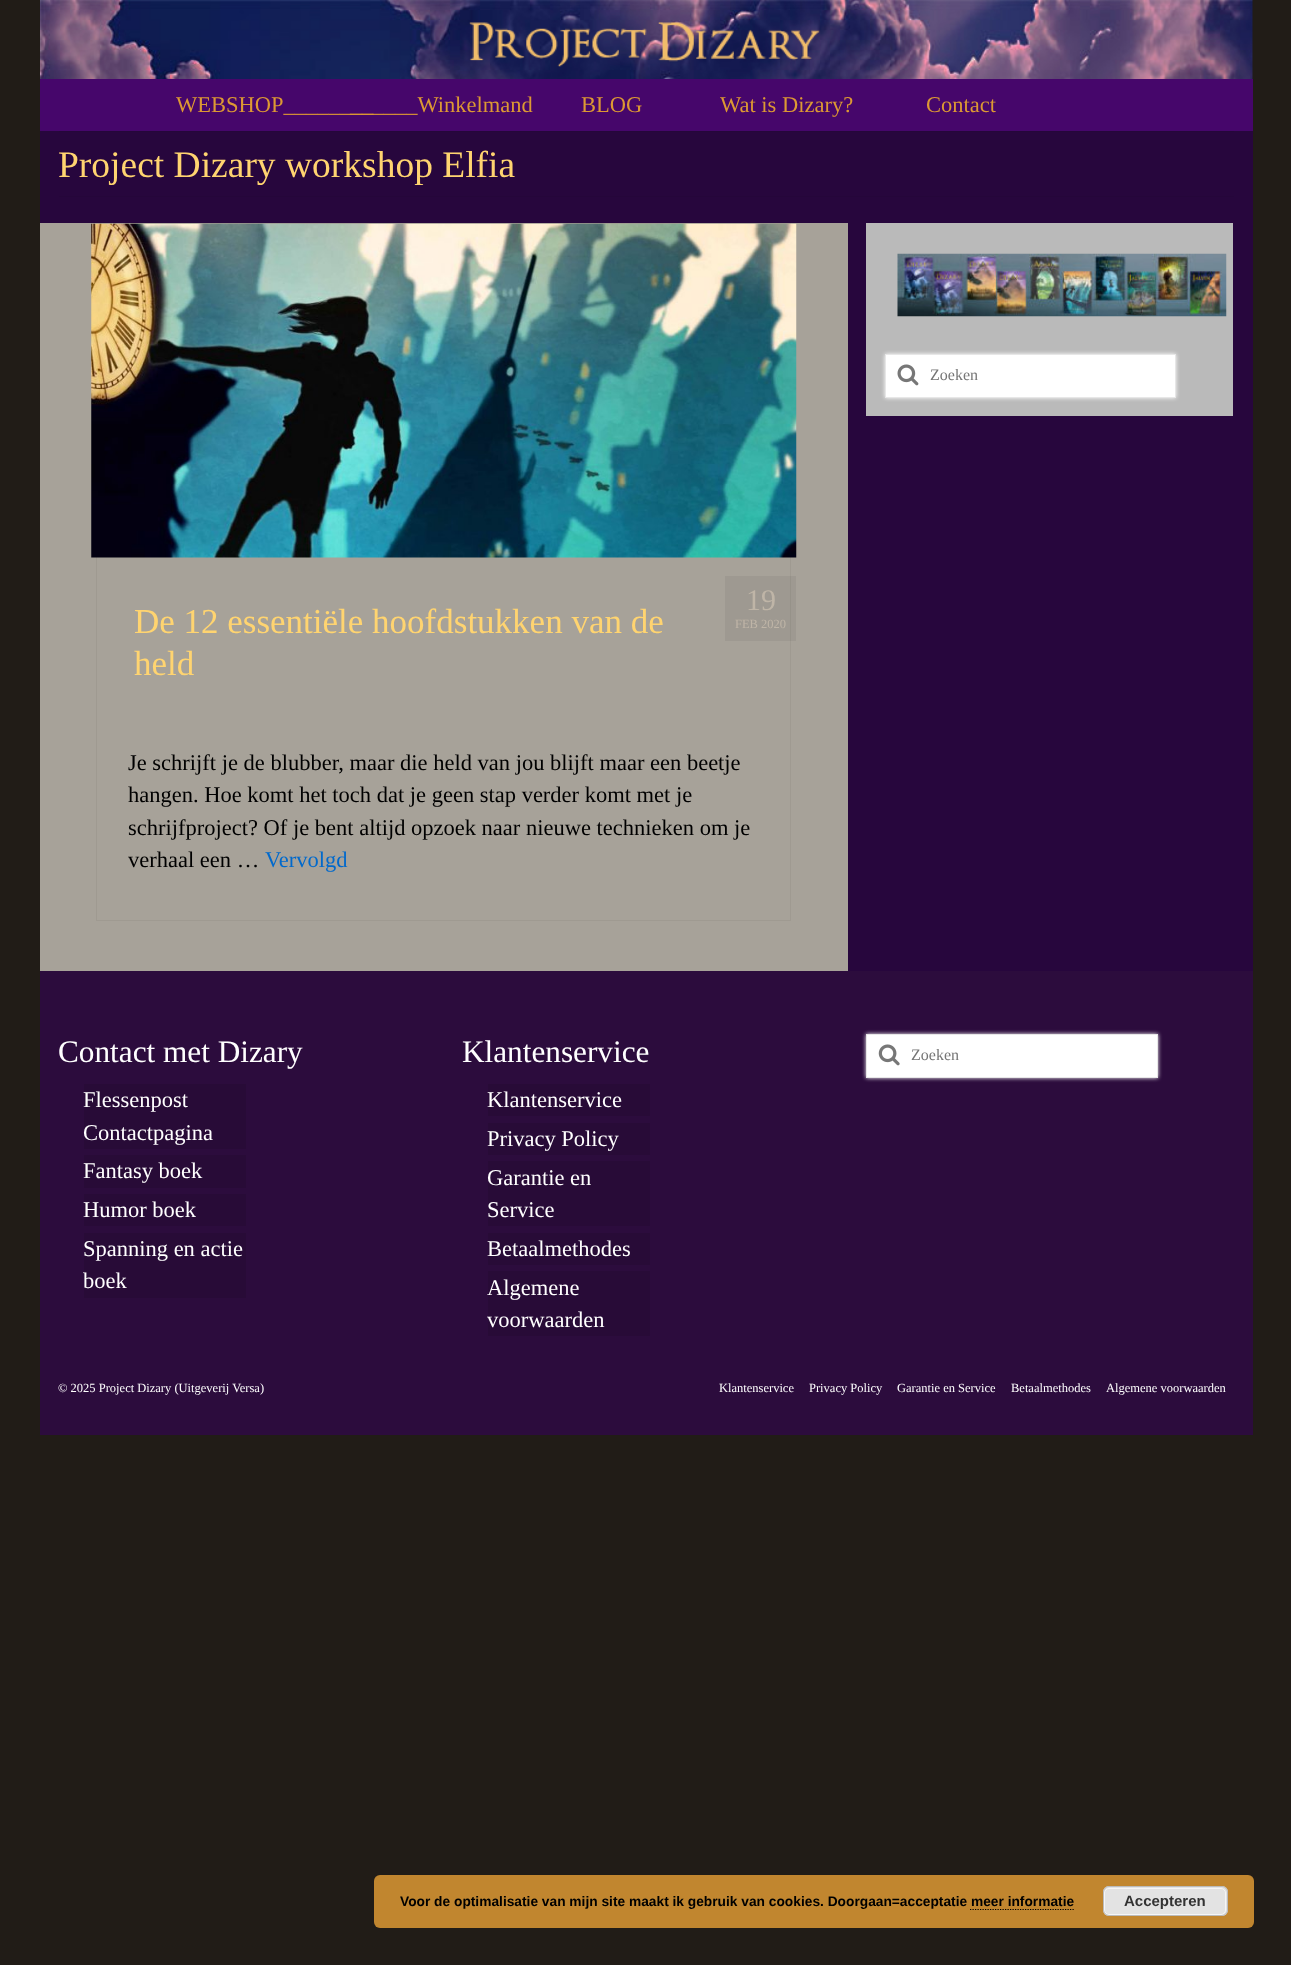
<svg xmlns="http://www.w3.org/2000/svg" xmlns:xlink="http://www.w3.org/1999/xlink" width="1291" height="1965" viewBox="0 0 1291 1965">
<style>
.cls-1{font:22.5px Liberation Serif;fill:#dd9933}
.cls-2{font:37.5px Liberation Serif;fill:#ffd470}
.cls-3{font:16px Liberation Serif;fill:#757575}
.cls-4{font:35px Liberation Serif;fill:#ffd470}
.cls-5{font:30px Liberation Serif;fill:#bfb5a7}
.cls-6{font:12.5px Liberation Serif;fill:#bfb5a7}
.cls-7{font:22.5px Liberation Serif;fill:#000000}
.cls-8{font:22.5px Liberation Serif;fill:#0069cc}
.cls-9{font:31.25px Liberation Serif;fill:#ffffff}
.cls-10{font:22.5px Liberation Serif;fill:#ffffff}
.cls-11{font:12.5px Liberation Serif;fill:#ffffff}
.cls-12{font:bold 13.75px Liberation Sans;fill:#000000}
.cls-13{font:bold 15px Liberation Sans;fill:#333333}
</style>
<rect width="100%" height="100%" fill="#211c17"/>
<image xlink:href="image0.png" x="40" y="0" width="1213" height="79"/>
<image xlink:href="image1.png" x="469" y="22" width="351" height="45"/>
<rect fill="#46066b" x="40" y="79" width="1213" height="52"/>
<rect fill="#27063d" x="40" y="131" width="1213" height="840"/>
<rect fill="#25063a" x="59" y="131" width="1175" height="1"/>
<rect fill="#25063a" x="59" y="196" width="1175" height="1"/>
<rect fill="#bababa" x="866" y="223" width="367" height="193"/>
<image xlink:href="image2.png" x="897" y="253" width="330" height="64"/>
<rect fill="#ffffff" filter="blur(2px)" x="885" y="354" width="291" height="44"/>
<rect fill="#ffffff" stroke="#e7e7e7" x="885.5" y="354.5" width="290" height="43"/>
<image xlink:href="image3.png" x="897" y="364" width="22" height="22"/>
<rect fill="#a7a299" x="40" y="223" width="808" height="748"/>
<rect fill="none" stroke="#9f9a91" x="96.5" y="223.5" width="694" height="697"/>
<image xlink:href="image4.png" x="91" y="223" width="706" height="335"/>
<rect fill="#000000" fill-opacity="0.05" x="725" y="576" width="71" height="65"/>
<rect fill="#2c0c3d" x="40" y="971" width="1213" height="464"/>
<rect fill="#280b37" x="84" y="1084" width="162" height="65"/>
<rect fill="#280b37" x="84" y="1155" width="162" height="33"/>
<rect fill="#280b37" x="84" y="1194" width="162" height="32"/>
<rect fill="#280b37" x="84" y="1233" width="162" height="65"/>
<rect fill="#280b37" x="488" y="1084" width="162" height="32"/>
<rect fill="#280b37" x="488" y="1123" width="162" height="32"/>
<rect fill="#280b37" x="488" y="1161" width="162" height="65"/>
<rect fill="#280b37" x="488" y="1233" width="162" height="32"/>
<rect fill="#280b37" x="488" y="1271" width="162" height="65"/>
<rect fill="#ffffff" filter="blur(2px)" x="866" y="1034" width="292" height="44"/>
<rect fill="#ffffff" stroke="#e7e7e7" x="866.5" y="1034.5" width="291" height="43"/>
<image xlink:href="image5.png" x="878" y="1044" width="22" height="22"/>
<rect fill="#c1862f" x="374" y="1875" width="880" height="53" rx="6"/>
<rect fill="#e3e3e3" x="1103" y="1886" width="125" height="30" rx="6"/>
<rect fill="none" stroke="#f6f6f6" x="1104.5" y="1888.5" width="121" height="26" rx="4.5"/>
<rect fill="none" stroke="#bbbbbb" x="1103.5" y="1886.5" width="124" height="29" rx="5.5"/>
<path fill="none" stroke="#000000" stroke-width="1.2" stroke-dasharray="1.25 1.25" d="M970 1909.5H1074"/>
<text class="cls-1" x="176" y="112">WEBSHOP________</text>
<text class="cls-1" x="350" y="112">______Winkelmand</text>
<text class="cls-1" x="581" y="112">BLOG</text>
<text class="cls-1" x="720" y="112">Wat is Dizary?</text>
<text class="cls-1" x="926" y="112">Contact</text>
<text class="cls-2" x="58" y="177">Project Dizary workshop Elfia</text>
<text class="cls-3" x="930" y="380">Zoeken</text>
<text class="cls-4"><tspan x="134" y="633">De 12 essentiële hoofdstukken van de</tspan><tspan x="134" y="675">held</tspan></text>
<text class="cls-5" x="746" y="610">19</text>
<text class="cls-6" x="735" y="628">FEB 2020</text>
<text class="cls-7"><tspan x="128" y="770">Je schrijft je de blubber, maar die held van jou blijft maar een beetje</tspan><tspan x="128" y="802">hangen. Hoe komt het toch dat je geen stap verder komt met je</tspan><tspan x="128" y="835">schrijfproject? Of je bent altijd opzoek naar nieuwe technieken om je</tspan><tspan x="128" y="867">verhaal een …</tspan></text>
<text class="cls-8" x="265" y="867">Vervolgd</text>
<text class="cls-9" x="58" y="1062">Contact met Dizary</text>
<text class="cls-10"><tspan x="83" y="1107">Flessenpost</tspan><tspan x="83" y="1140">Contactpagina</tspan><tspan x="83" y="1178">Fantasy boek</tspan><tspan x="83" y="1217">Humor boek</tspan><tspan x="83" y="1256">Spanning en actie</tspan><tspan x="83" y="1288">boek</tspan></text>
<text class="cls-9" x="462" y="1062">Klantenservice</text>
<text class="cls-10"><tspan x="487" y="1107">Klantenservice</tspan><tspan x="487" y="1146">Privacy Policy</tspan><tspan x="487" y="1185">Garantie en</tspan><tspan x="487" y="1217">Service</tspan><tspan x="487" y="1256">Betaalmethodes</tspan><tspan x="487" y="1295">Algemene</tspan><tspan x="487" y="1327">voorwaarden</tspan></text>
<text class="cls-3" x="911" y="1060">Zoeken</text>
<text class="cls-11" x="58" y="1392">© 2025 Project Dizary (Uitgeverij Versa)</text>
<text class="cls-11" x="719" y="1392">Klantenservice</text>
<text class="cls-11" x="809" y="1392">Privacy Policy</text>
<text class="cls-11" x="897" y="1392">Garantie en Service</text>
<text class="cls-11" x="1011" y="1392">Betaalmethodes</text>
<text class="cls-11" x="1106" y="1392">Algemene voorwaarden</text>
<text class="cls-12" x="400" y="1906">Voor de optimalisatie van mijn site maakt ik gebruik van cookies. Doorgaan=acceptatie meer informatie</text>
<text class="cls-13" x="1124" y="1906">Accepteren</text>
</svg>
